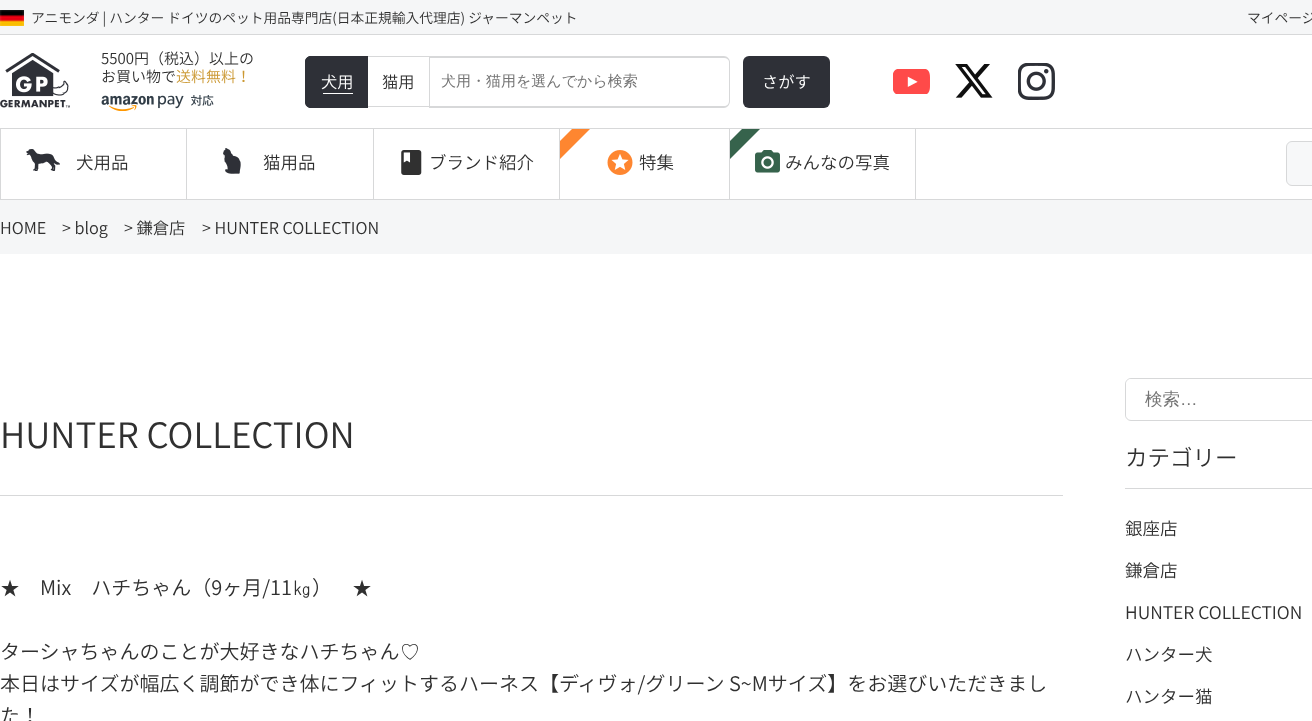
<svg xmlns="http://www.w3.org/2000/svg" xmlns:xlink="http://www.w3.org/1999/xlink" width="1312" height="721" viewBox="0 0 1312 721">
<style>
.cls-1{font:300 13.75px Noto Sans JP;fill:#303030}
.cls-2{font:300 15px Noto Sans JP;fill:#303030}
.cls-3{font:300 15px Noto Sans JP;fill:#cc9933}
.cls-4{font:300 16.25px Noto Sans JP;fill:#ffffff}
.cls-5{font:300 16.25px Noto Sans JP;fill:#303030}
.cls-6{font:500 15px WenQuanYi Zen Hei;fill:#757575}
.cls-7{font:300 17.5px Noto Sans JP;fill:#303030}
.cls-8{font:300 35px Noto Sans JP;fill:#303030}
.cls-9{font:500 20px WenQuanYi Zen Hei;fill:#303030}
.cls-10{font:300 20px Noto Sans JP;fill:#303030}
.cls-11{font:500 17.5px WenQuanYi Zen Hei;fill:#757575}
.cls-12{font:17.5px Liberation Sans;fill:#757575}
.cls-13{font:300 22.5px Noto Sans JP;fill:#303030}
</style>
<defs>
<clipPath id="clip1"><rect x="560" y="129" width="169" height="67"/></clipPath>
<clipPath id="clip2"><rect x="730" y="129" width="185" height="67"/></clipPath>
<clipPath id="clip3"><rect x="1126" y="379" width="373" height="41" rx="5"/></clipPath>
</defs>
<rect width="100%" height="100%" fill="#f5f6f7"/>
<rect fill="#ffffff" x="0" y="35" width="1312" height="164"/>
<rect fill="#d7d8d9" x="0" y="34" width="1312" height="1"/>
<image xlink:href="image0.png" x="0" y="10" width="24" height="16"/>
<rect fill="#d7d8d9" x="0" y="128" width="1312" height="1"/>
<image xlink:href="image1.png" x="0" y="53" width="70" height="55"/>
<image xlink:href="image2.png" x="101" y="95" width="113" height="16"/>
<path fill="#2e3037" d="M311 56H368V108H311C307.5 108 305 105.5 305 102V62C305 58.5 307.5 56 311 56Z"/>
<path fill="#2e3037" fill-rule="evenodd" d="M311 56H368V108H311C308 108 305 105 305 101V62C305 59 308 56 311 56ZM311 58H368V106H311C308 106 306 104 306 101V62C306 60 308 58 311 58Z"/>
<rect fill="#ffffff" x="323" y="93" width="30" height="1"/>
<rect fill="#d7d8d9" x="368" y="56" width="62" height="1"/>
<rect fill="#d7d8d9" x="429" y="56" width="1" height="52"/>
<rect fill="#d7d8d9" x="368" y="106" width="62" height="1"/>
<path fill="#d7d8d9" fill-rule="evenodd" d="M430 56H724C727 56 730 59 730 62V101C730 105 727 108 724 108H430ZM430 58H724C727 58 729 60 729 62V101C729 104 727 106 724 106H430Z"/>
<rect fill="#2e3037" x="743" y="56" width="87" height="52" rx="6"/>
<image xlink:href="image3.png" x="893" y="69" width="37" height="25"/>
<image xlink:href="image4.png" x="955" y="64" width="38" height="34"/>
<image xlink:href="image5.png" x="1018" y="63" width="37" height="37"/>
<rect fill="#d7d8d9" x="0" y="199" width="1312" height="1"/>
<rect fill="#d7d8d9" x="186" y="129" width="1" height="70"/>
<rect fill="#d7d8d9" x="0" y="129" width="1" height="70"/>
<image xlink:href="image6.png" x="26" y="149" width="34" height="22"/>
<rect fill="#d7d8d9" x="373" y="129" width="1" height="70"/>
<image xlink:href="image7.png" x="223" y="148" width="18" height="26"/>
<rect fill="#d7d8d9" x="559" y="129" width="1" height="70"/>
<image xlink:href="image8.png" x="401" y="150" width="21" height="25"/>
<rect fill="#d7d8d9" x="729" y="129" width="1" height="70"/>
<g clip-path="url(#clip1)">
<path fill="#fe8630" d="M526 175L615 86L624 95L535 184Z"/>
</g>
<image xlink:href="image9.png" x="607" y="150" width="26" height="25"/>
<rect fill="#d7d8d9" x="915" y="129" width="1" height="70"/>
<image xlink:href="image10.png" x="755" y="150" width="25" height="23"/>
<g clip-path="url(#clip2)">
<path fill="#36634c" d="M696 175L785 86L794 95L705 184Z"/>
</g>
<rect fill="#f7f8f9" stroke="#d7d8d9" x="1286.5" y="141.5" width="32" height="44" rx="5.5"/>
<rect fill="#ffffff" x="0" y="254" width="1312" height="467"/>
<rect fill="#d7d8d9" x="0" y="495" width="1063" height="1"/>
<rect fill="none" stroke="#d7d8d9" x="1125.5" y="378.5" width="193" height="42" rx="5.5"/>
<g clip-path="url(#clip3)">
<path fill="#ffffff" d="M1131 379H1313C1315 379 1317 381 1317 383V415C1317 417 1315 419 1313 419H1130C1128 419 1126 417 1126 415V384C1126 381 1128 379 1131 379Z"/>
</g>
<rect fill="#d7d8d9" x="1125" y="488" width="187" height="1"/>
<text class="cls-1" x="31" y="23">アニモンダ | ハンター ドイツのペット用品専門店(日本正規輸入代理店) ジャーマンペット</text>
<text class="cls-1" x="1247" y="23">マイページ</text>
<text class="cls-2"><tspan x="101" y="64">5500円（税込）以上の</tspan><tspan x="101" y="82">お買い物で</tspan></text>
<text class="cls-3" x="176" y="82">送料無料！</text>
<text class="cls-4" x="321" y="88">犬用</text>
<text class="cls-5" x="382" y="88">猫用</text>
<text class="cls-6" x="441" y="86">犬用・猫用を選んでから検索</text>
<text class="cls-4" x="762" y="88">さがす</text>
<text class="cls-7" x="76" y="169">犬用品</text>
<text class="cls-7" x="263" y="169">猫用品</text>
<text class="cls-7" x="429" y="169">ブランド紹介</text>
<text class="cls-7" x="639" y="169">特集</text>
<text class="cls-7" x="785" y="169">みんなの写真</text>
<text class="cls-5" x="0" y="234">HOME</text>
<text class="cls-5" x="62" y="234">&gt; blog</text>
<text class="cls-5" x="124" y="234">&gt; 鎌倉店</text>
<text class="cls-5" x="202" y="234">&gt; HUNTER COLLECTION</text>
<text class="cls-8" x="0" y="448">HUNTER COLLECTION</text>
<text class="cls-9" x="0" y="595">★</text>
<text class="cls-10" x="40" y="595">Mix　ハチちゃん（9ヶ月/11</text>
<text class="cls-9" x="292" y="595">㎏</text>
<text class="cls-10" x="312" y="595">）</text>
<text class="cls-9" x="352" y="595">★</text>
<text class="cls-10" x="0" y="659">ターシャちゃんのことが大好きなハチちゃん</text>
<text class="cls-9" x="400" y="659">♡</text>
<text class="cls-10"><tspan x="0" y="691">本日はサイズが幅広く調節ができ体にフィットするハーネス【ディヴォ/グリーン S~Mサイズ】をお選びいただきまし</tspan><tspan x="0" y="723">た！</tspan></text>
<text class="cls-11" x="1145" y="405">検索</text>
<text class="cls-12" x="1180" y="405">…</text>
<text class="cls-13" x="1125" y="466">カテゴリー</text>
<text class="cls-7" x="1125" y="535">銀座店</text>
<text class="cls-7" x="1125" y="577">鎌倉店</text>
<text class="cls-7" x="1125" y="619">HUNTER COLLECTION</text>
<text class="cls-7" x="1125" y="661">ハンター犬</text>
<text class="cls-7" x="1125" y="703">ハンター猫</text>
</svg>
